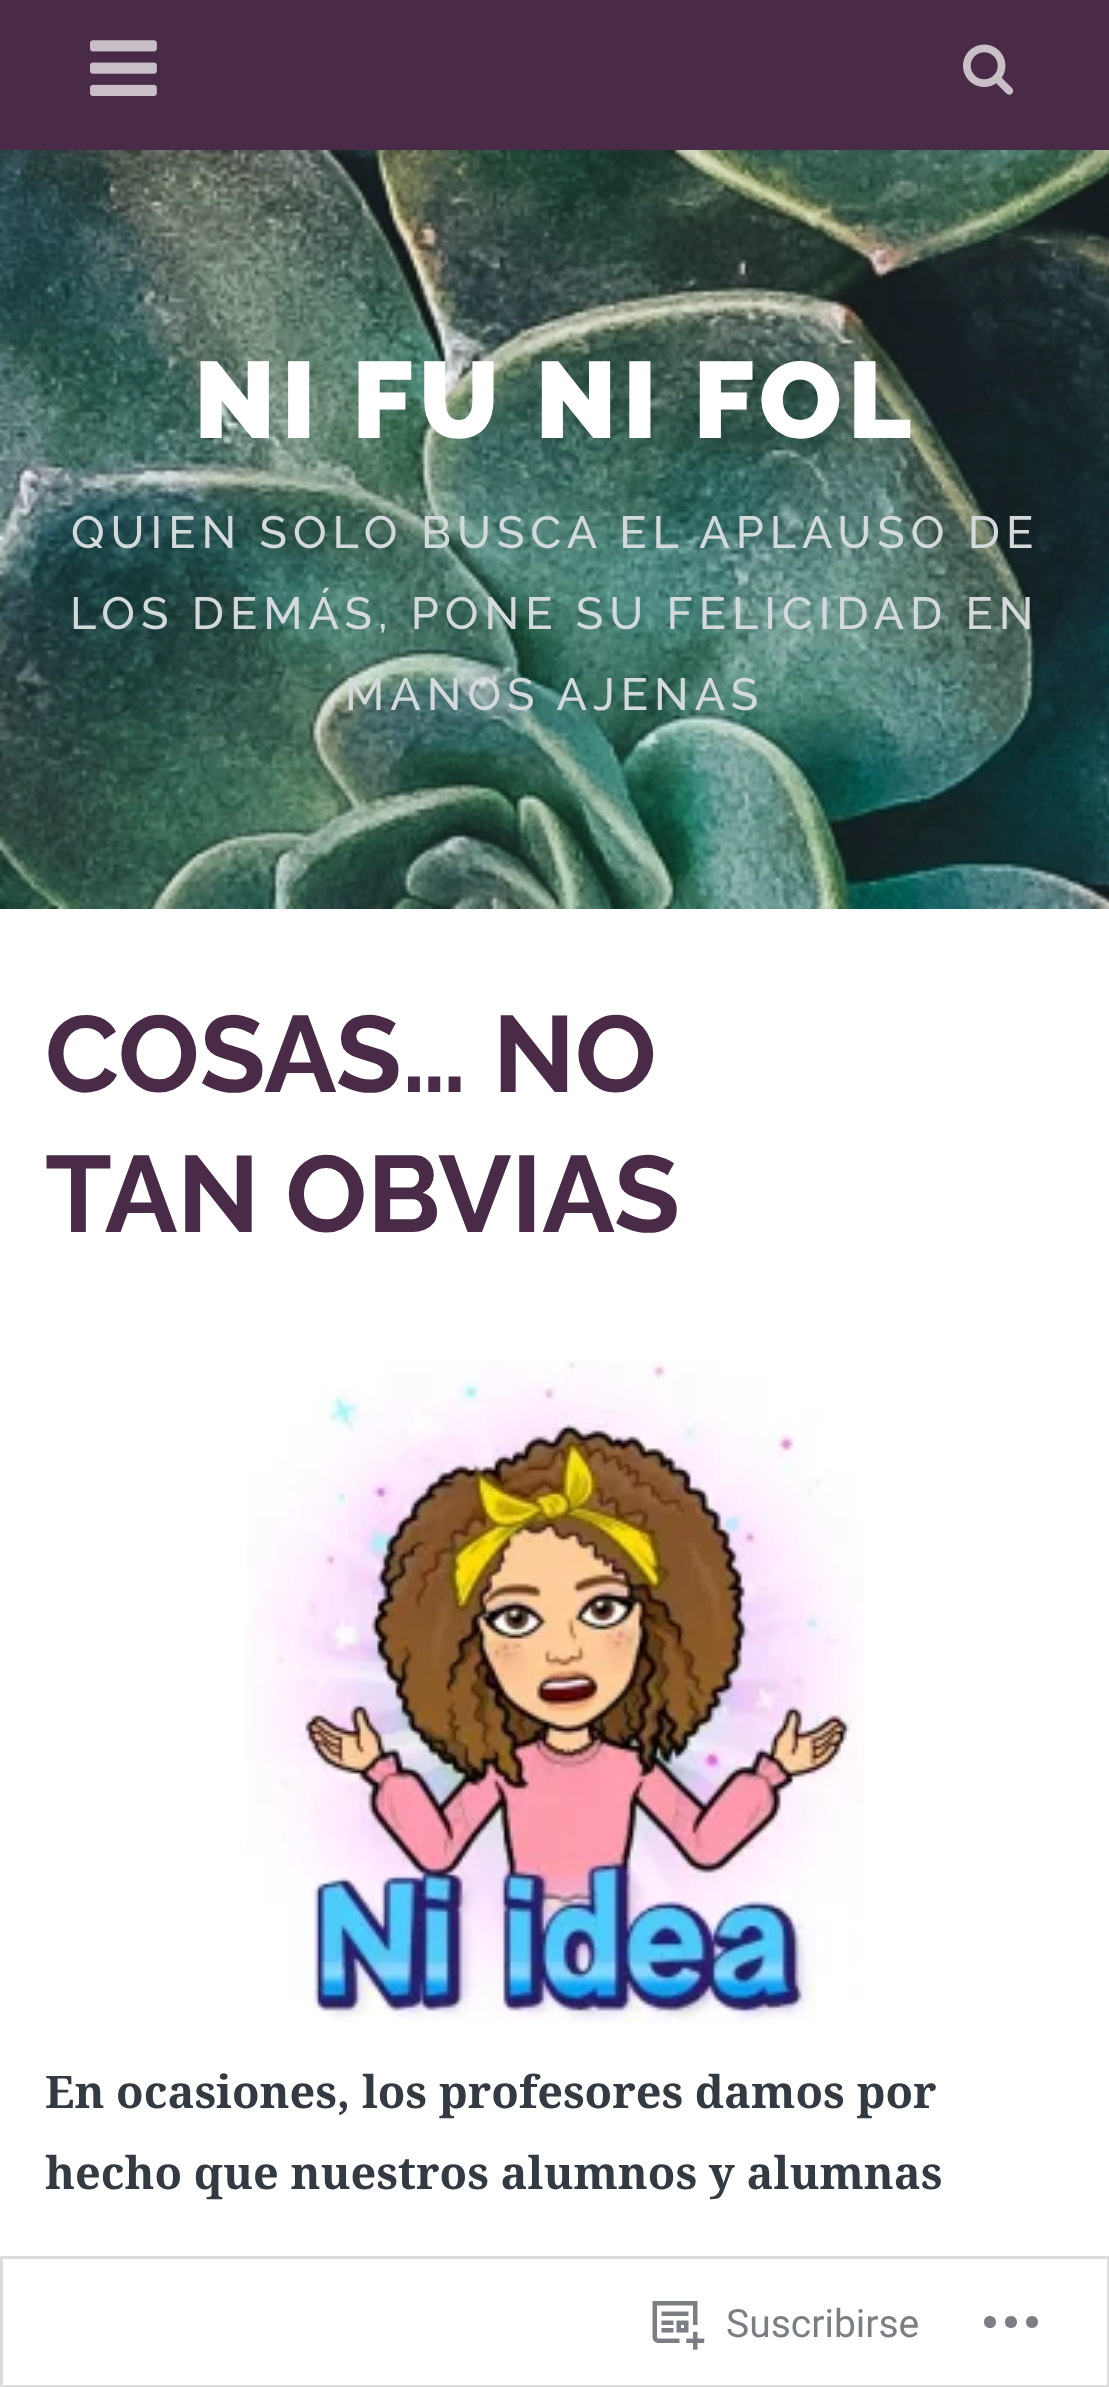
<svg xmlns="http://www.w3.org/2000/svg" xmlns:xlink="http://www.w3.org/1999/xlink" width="1109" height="2387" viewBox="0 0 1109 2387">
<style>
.cls-1{font:900 108px Raleway;letter-spacing:6px;fill:#ffffff}
.cls-2{font:500 45px Raleway;letter-spacing:6px;fill:#d4dadc}
.cls-3{font:bold 108px Raleway;fill:#492b47}
.cls-4{font:bold 45px Noto Serif;fill:#333a42}
.cls-5{font:39px Roboto;fill:#7b7f84}
</style>
<rect width="100%" height="100%" fill="#ffffff"/>
<rect fill="#492b47" x="0" y="0" width="1109" height="150"/>
<image xlink:href="image0.png" x="90" y="40" width="67" height="56"/>
<image xlink:href="image1.png" x="963" y="44" width="51" height="51"/>
<image xlink:href="image2.png" x="0" y="150" width="1109" height="759"/>
<image xlink:href="image3.png" x="245" y="1361" width="619" height="662"/>
<rect fill="none" stroke="#dcdcde" stroke-opacity="0.98" stroke-width="3" x="1.5" y="2257.5" width="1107" height="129"/>
<image xlink:href="image4.png" x="652" y="2301" width="53" height="49"/>
<path fill="#7b7f85" d="M996 2322C996 2330 984 2330 984 2322C984 2314 996 2314 996 2322ZM1032 2316C1024 2316 1024 2328 1032 2328C1040 2328 1040 2316 1032 2316ZM1011 2316C1003 2316 1003 2328 1011 2328C1019 2328 1019 2316 1011 2316Z"/>
<text class="cls-1" x="194" y="438">NI FU NI FOL</text>
<text class="cls-2" x="71" y="548">QUIEN SOLO BUSCA EL APLAUSO DE</text>
<text class="cls-2" x="70" y="629">LOS DEMÁS, PONE SU FELICIDAD EN</text>
<text class="cls-2" x="345" y="710">MANOS AJENAS</text>
<text class="cls-3"><tspan x="45" y="1092">COSAS… NO</tspan><tspan x="45" y="1232">TAN OBVIAS</tspan></text>
<text class="cls-4"><tspan x="45" y="2108">En ocasiones, los profesores damos por</tspan><tspan x="45" y="2189">hecho que nuestros alumnos y alumnas</tspan></text>
<text class="cls-5" x="726" y="2337">Suscribirse</text>
</svg>
